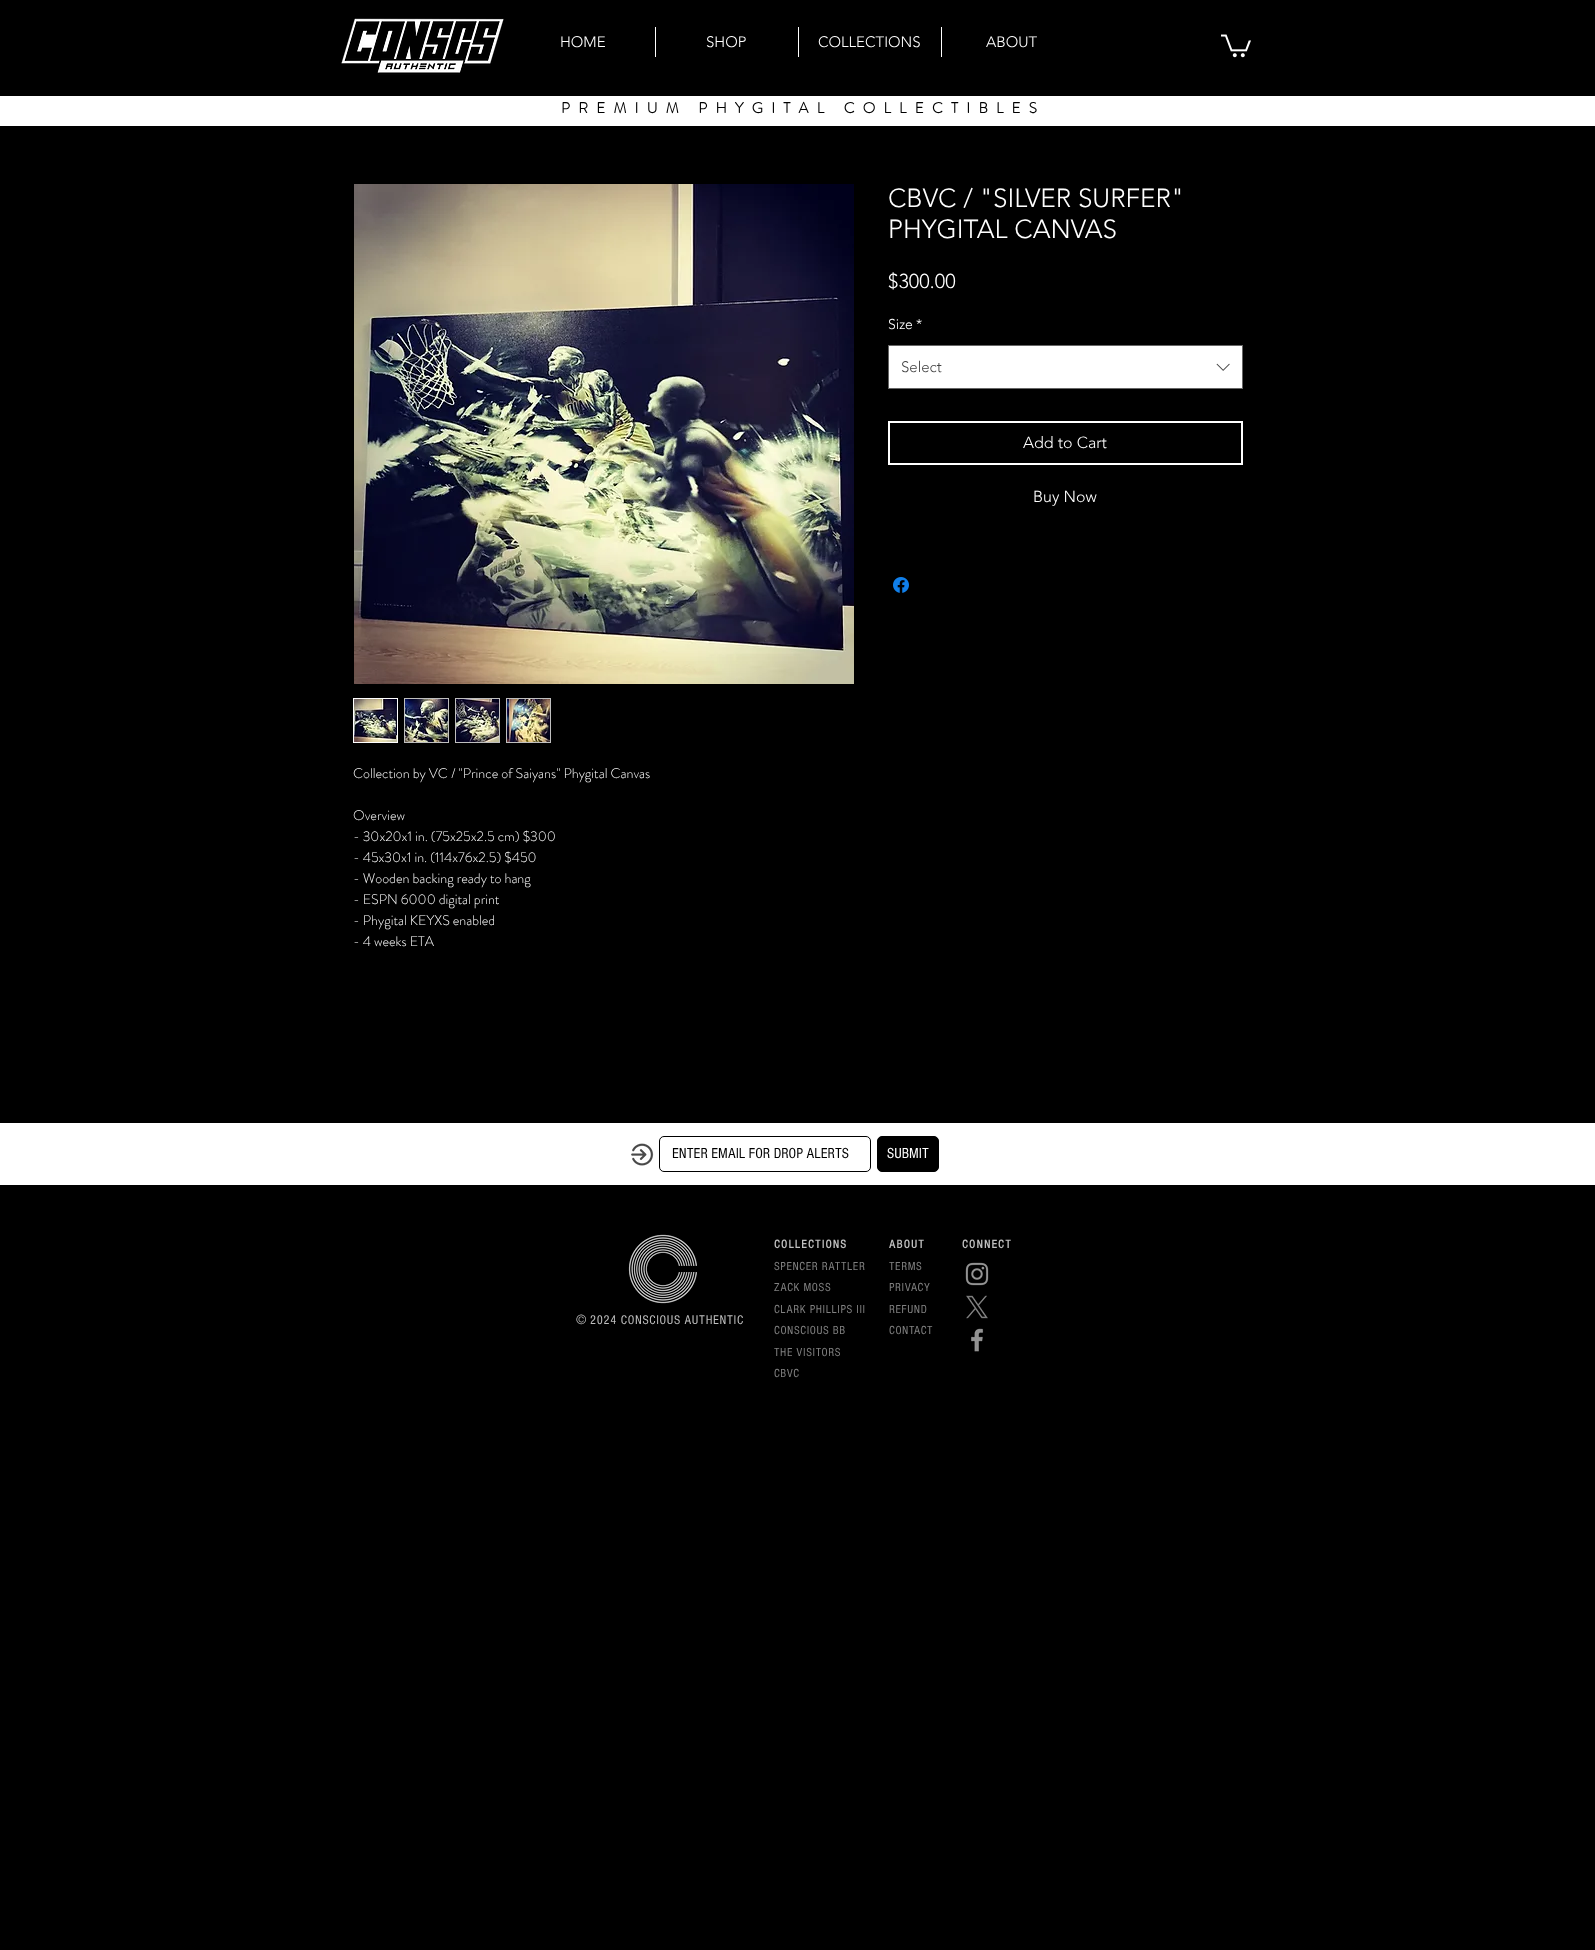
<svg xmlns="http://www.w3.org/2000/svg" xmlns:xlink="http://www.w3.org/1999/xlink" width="1595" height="1950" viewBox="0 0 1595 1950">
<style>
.cls-1{font:300 15px 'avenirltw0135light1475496';fill:#ffffff}
.cls-2{font:bold 15px 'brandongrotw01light';letter-spacing:8.25px;fill:#000000}
.cls-3{font:300 26px 'avenirltw0135light1475496';fill:#ffffff}
.cls-4{font:300 20px 'avenirltw0135light1475496';fill:#ffffff}
.cls-5{font:300 14px 'avenirltw0135light1475496';fill:#ffffff}
.cls-6{font:300 15px 'avenirltw0135light1475496';fill:#444444}
.cls-7{font:300 16px 'avenirltw0135light1475496';fill:#ffffff}
.cls-8{font:300 14px 'brandongrotw01light';fill:#ffffff}
.cls-9{font:15px 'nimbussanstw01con';fill:#000000}
.cls-10{font:15px 'nimbussanstw01con';fill:#ffffff}
.cls-11{font:bold 12px 'nimbussanstw01con';letter-spacing:1.25px;fill:#bfbfbf}
.cls-12{font:12px 'nimbussanstw01con';letter-spacing:0.6px;fill:#808080}
.cls-13{font:300 13px 'avenirltw0135light1475496';fill:#bfbfbf}
.cls-14{font:13px 'nimbussanstw01con';letter-spacing:0.65px;fill:#bfbfbf}
</style>
<rect width="100%" height="100%" fill="#000000"/>
<image xlink:href="image0.png" x="341" y="18" width="163" height="57"/>
<rect fill="#ffffff" x="655" y="27" width="1" height="30"/>
<rect fill="#ffffff" x="798" y="27" width="1" height="30"/>
<rect fill="#ffffff" x="941" y="27" width="1" height="30"/>
<image xlink:href="image1.png" x="1221" y="34" width="30" height="24"/>
<rect fill="#ffffff" x="0" y="96" width="1595" height="30"/>
<rect fill="#ffffff" stroke="#666666" x="888.5" y="345.5" width="354" height="43"/>
<image xlink:href="image2.png" x="1216" y="363" width="14" height="8"/>
<rect fill="none" stroke="#ffffff" stroke-width="2" x="889" y="422" width="353" height="42"/>
<image xlink:href="image3.png" x="893" y="577" width="16" height="16"/>
<image xlink:href="image4.png" x="354" y="184" width="500" height="500"/>
<rect fill="none" stroke="#ffffff" x="353.5" y="698.5" width="44" height="44"/>
<image xlink:href="image5.png" x="354" y="699" width="43" height="43"/>
<rect fill="#bfbfbf" x="404" y="698" width="45" height="45"/>
<image xlink:href="image6.png" x="405" y="699" width="43" height="43"/>
<rect fill="#bfbfbf" x="455" y="698" width="45" height="45"/>
<image xlink:href="image7.png" x="456" y="699" width="43" height="43"/>
<rect fill="#bfbfbf" x="506" y="698" width="45" height="45"/>
<image xlink:href="image8.png" x="507" y="699" width="43" height="43"/>
<rect fill="#ffffff" x="0" y="1123" width="1595" height="62"/>
<image xlink:href="image9.png" x="631" y="1143" width="23" height="23"/>
<rect fill="none" stroke="#000000" x="659.5" y="1136.5" width="211" height="35" rx="4.5"/>
<rect fill="#000000" stroke="#000000" x="877.5" y="1136.5" width="61" height="35" rx="4.5"/>
<image xlink:href="image10.png" x="628" y="1234" width="69" height="70"/>
<image xlink:href="image11.png" x="965" y="1262" width="24" height="24"/>
<image xlink:href="image12.png" x="966" y="1295" width="22" height="24"/>
<image xlink:href="image13.png" x="971" y="1328" width="13" height="24"/>
<text class="cls-1" x="560" y="47">HOME</text>
<text class="cls-1" x="706" y="47">SHOP</text>
<text class="cls-1" x="818" y="47">COLLECTIONS</text>
<text class="cls-1" x="986" y="47">ABOUT</text>
<text class="cls-2" x="561" y="113">PREMIUM PHYGITAL COLLECTIBLES</text>
<text class="cls-3"><tspan x="888" y="207">CBVC / "SILVER SURFER"</tspan><tspan x="888" y="238">PHYGITAL CANVAS</tspan></text>
<text class="cls-4" x="888" y="288">$300.00</text>
<text class="cls-5" x="888" y="329">Size</text>
<text class="cls-5" x="916" y="329">*</text>
<text class="cls-6" x="901" y="372">Select</text>
<text class="cls-7" x="1023" y="448">Add to Cart</text>
<text class="cls-7" x="1033" y="502">Buy Now</text>
<text class="cls-8" x="353" y="778">Collection by VC / "Prince of Saiyans" Phygital Canvas</text>
<text class="cls-8"><tspan x="353" y="820">Overview</tspan><tspan x="353" y="841">- 30x20x1 in. (75x25x2.5 cm) $300</tspan><tspan x="353" y="862">- 45x30x1 in. (114x76x2.5) $450</tspan><tspan x="353" y="883">- Wooden backing ready to hang</tspan><tspan x="353" y="904">- ESPN 6000 digital print</tspan><tspan x="353" y="925">- Phygital KEYXS enabled</tspan><tspan x="353" y="946">- 4 weeks ETA</tspan></text>
<text class="cls-9" x="672" y="1158">ENTER EMAIL FOR DROP ALERTS</text>
<text class="cls-10" x="887" y="1158">SUBMIT</text>
<text class="cls-11" x="774" y="1248">COLLECTIONS</text>
<text class="cls-12"><tspan x="774" y="1270">SPENCER RATTLER</tspan><tspan x="774" y="1291">ZACK MOSS</tspan><tspan x="774" y="1313">CLARK PHILLIPS III</tspan><tspan x="774" y="1334">CONSCIOUS BB</tspan><tspan x="774" y="1356">THE VISITORS</tspan><tspan x="774" y="1377">CBVC</tspan></text>
<text class="cls-11" x="889" y="1248">ABOUT</text>
<text class="cls-12"><tspan x="889" y="1270">TERMS</tspan><tspan x="889" y="1291">PRIVACY</tspan><tspan x="889" y="1313">REFUND</tspan><tspan x="889" y="1334">CONT</tspan></text>
<text class="cls-12" x="914" y="1334">ACT</text>
<text class="cls-11" x="962" y="1248">CONNECT</text>
<text class="cls-13" x="576" y="1324">©</text>
<text class="cls-14" x="590" y="1324">2024 CONSCIOUS AUTHENTIC</text>
</svg>
